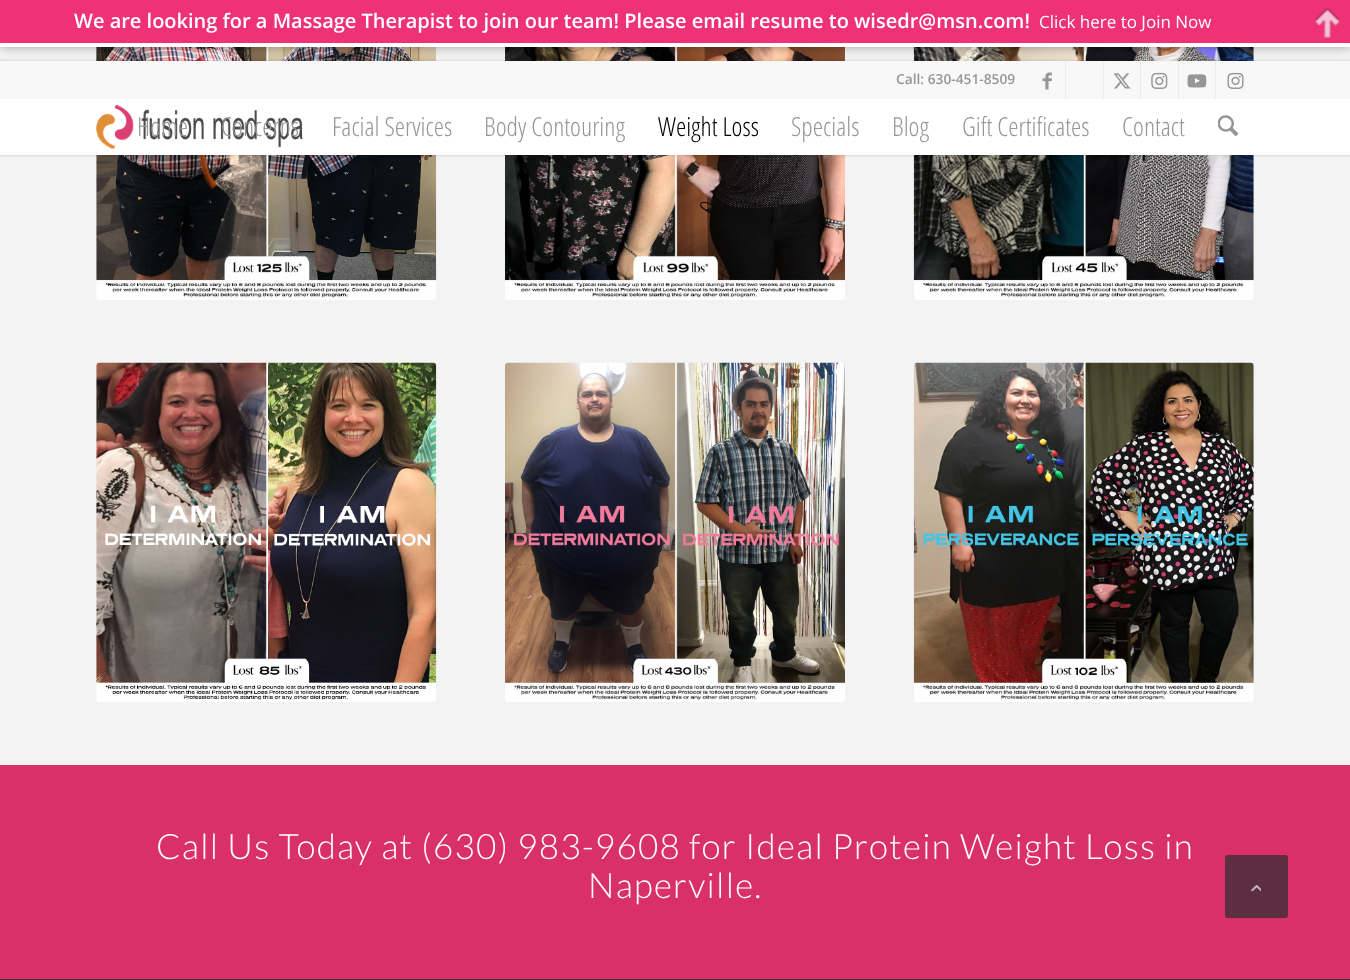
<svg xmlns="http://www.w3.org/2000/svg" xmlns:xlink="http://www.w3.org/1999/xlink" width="1350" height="980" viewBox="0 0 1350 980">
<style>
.cls-1{font:600 20px Open Sans;fill:#ffffff}
.cls-2{font:17px Open Sans;fill:#ffffff}
.cls-3{font:600 13.75px Open Sans;fill:#969696}
.cls-4{font:300 26.25px Open Sans Condensed;fill:#969696}
.cls-5{font:300 26.25px Open Sans Condensed;fill:#000000}
.cls-6{font:300 35px Lato;letter-spacing:1.25px;fill:#ffffff}
</style>
<rect width="100%" height="100%" fill="#f3f3f3"/>
<image xlink:href="image8.png" x="96" y="47" width="341" height="253"/>
<image xlink:href="image9.png" x="505" y="47" width="340" height="253"/>
<image xlink:href="image10.png" x="913" y="47" width="341" height="253"/>
<rect fill="#000000" fill-opacity="0.1" filter="blur(1px)" x="-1" y="60" width="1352" height="96"/>
<rect fill="#f8f8f8" x="0" y="61" width="1350" height="38"/>
<rect fill="#ebebeb" x="1065" y="61" width="1" height="38"/>
<rect fill="#ebebeb" x="1103" y="61" width="1" height="38"/>
<rect fill="#ebebeb" x="1140" y="61" width="1" height="38"/>
<rect fill="#ebebeb" x="1178" y="61" width="1" height="38"/>
<rect fill="#ebebeb" x="1215" y="61" width="1" height="38"/>
<rect fill="#000000" fill-opacity="0.4" filter="blur(6px)" x="0" y="0" width="1350" height="46"/>
<rect fill="#ee3275" x="0" y="0" width="1350" height="43"/>
<rect fill="#ffffff" x="0" y="43" width="1350" height="4"/>
<image xlink:href="image0.png" x="1314" y="7" width="27" height="32"/>
<image xlink:href="image1.png" x="1042" y="72" width="10" height="18"/>
<image xlink:href="image2.png" x="1113" y="73" width="18" height="16"/>
<image xlink:href="image3.png" x="1151" y="72" width="17" height="17"/>
<image xlink:href="image4.png" x="1187" y="74" width="20" height="14"/>
<image xlink:href="image5.png" x="1227" y="72" width="17" height="17"/>
<rect fill="#ffffff" x="0" y="99" width="1350" height="56"/>
<image xlink:href="image6.png" x="96" y="105" width="207" height="44"/>
<image xlink:href="image7.png" x="1218" y="115" width="20" height="21"/>
<image xlink:href="image11.png" x="96" y="362" width="341" height="340"/>
<image xlink:href="image12.png" x="505" y="362" width="340" height="340"/>
<image xlink:href="image13.png" x="913" y="362" width="341" height="340"/>
<rect fill="#da306a" x="0" y="765" width="1350" height="214"/>
<rect fill="#35383c" x="0" y="979" width="1350" height="1"/>
<rect fill="#5d2d40" stroke="#5d2d40" x="1225.5" y="855.5" width="62" height="62" rx="2"/>
<image xlink:href="image14.png" x="1251" y="885" width="10" height="7"/>
<text class="cls-1" x="74" y="28">We are looking for a Massage Therapist to join our team! Please email resume to wisedr@msn.com!</text>
<text class="cls-2" x="1039" y="28">Click here to Join Now</text>
<text class="cls-3" x="896" y="84">Call: 630-451-8509</text>
<text class="cls-4" x="137" y="136">Home</text>
<text class="cls-4" x="221" y="136">Concerns</text>
<text class="cls-4" x="332" y="136">Facial Services</text>
<text class="cls-4" x="484" y="136">Body Contouring</text>
<text class="cls-5" x="658" y="136">Weight Loss</text>
<text class="cls-4" x="791" y="136">Specials</text>
<text class="cls-4" x="892" y="136">Blog</text>
<text class="cls-4" x="962" y="136">Gift Certificates</text>
<text class="cls-4" x="1122" y="136">Contact</text>
<text class="cls-6" x="156" y="859">Call Us Today at (630) 983-9608 for Ideal Protein Weight Loss in</text>
<text class="cls-6" x="588" y="898">Naperville.</text>
</svg>
